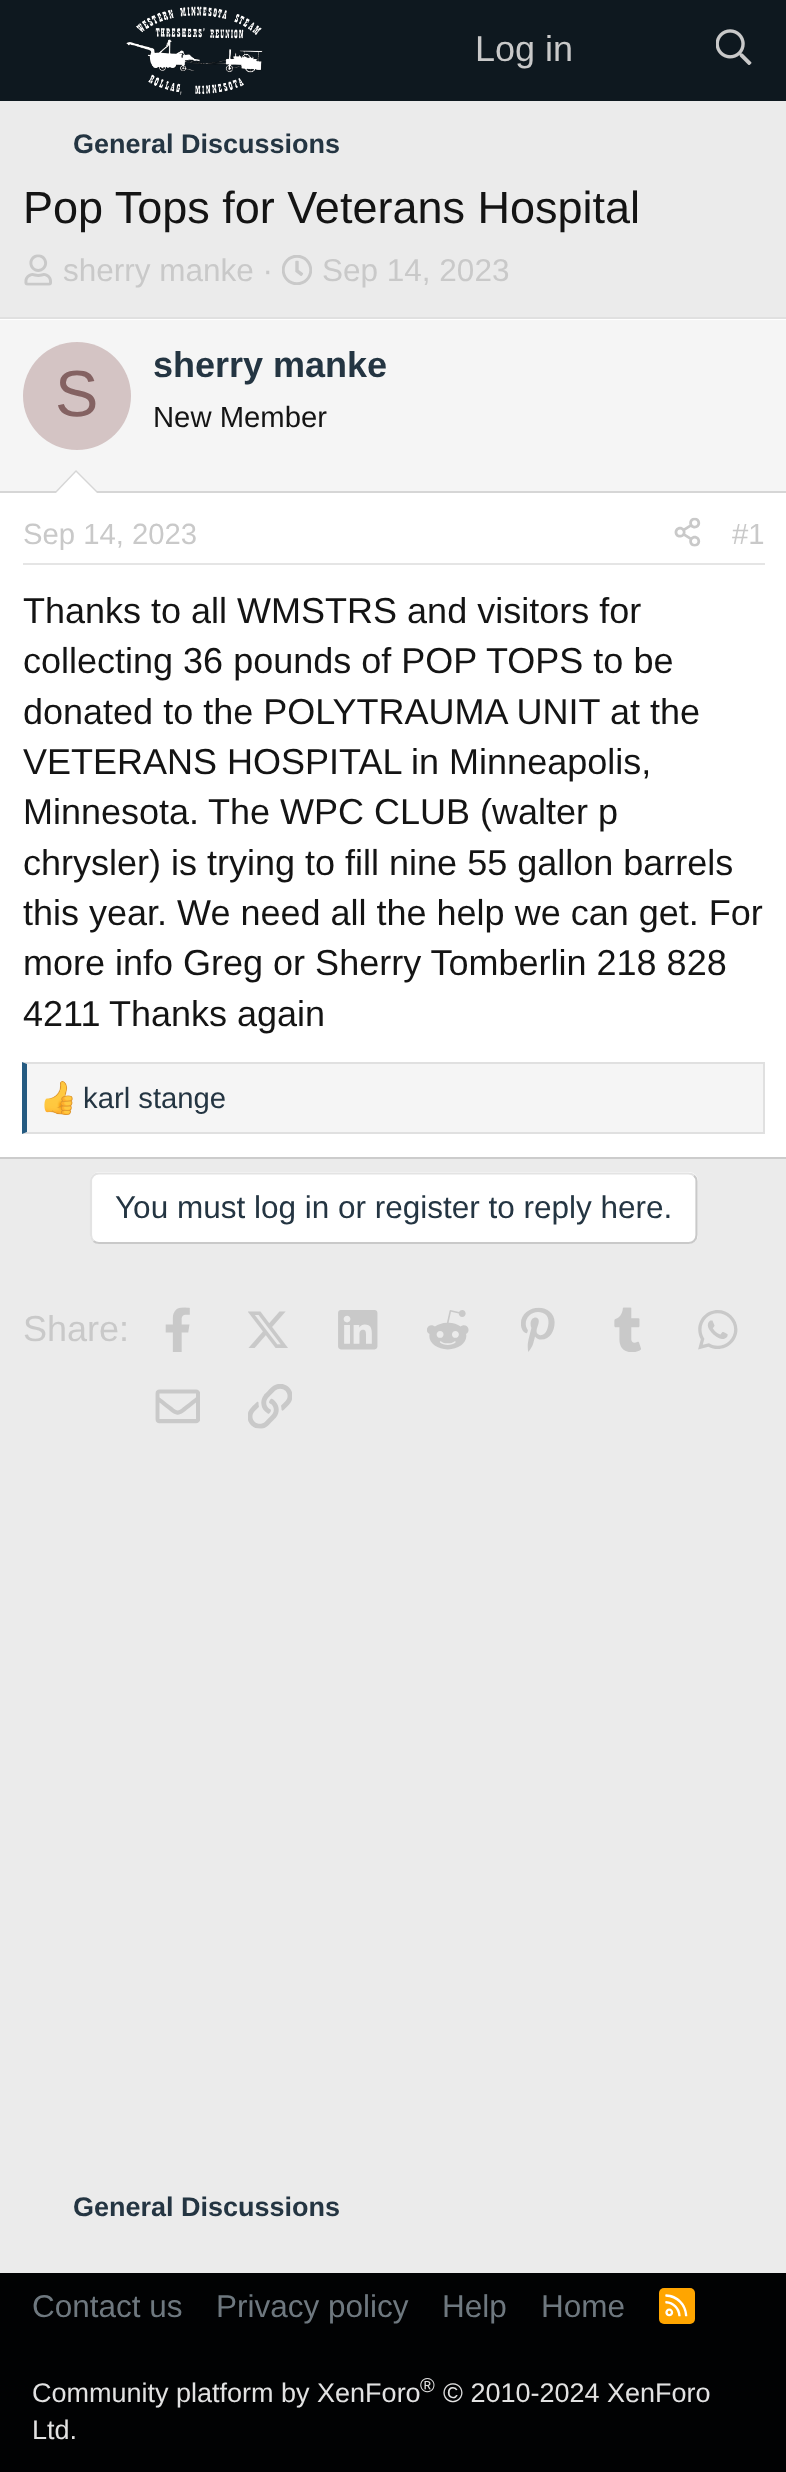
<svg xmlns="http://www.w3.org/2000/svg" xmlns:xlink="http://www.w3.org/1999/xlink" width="786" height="2472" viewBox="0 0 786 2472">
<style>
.cls-1{font:36px Liberation Sans;fill:#c9c9c9}
.cls-2{font:bold 27px Liberation Sans;fill:#243542}
.cls-3{font:45px Liberation Sans;fill:#141414}
.cls-4{font:31.5px Liberation Sans;fill:#c9c9c9}
.cls-5{font:65px Liberation Sans;fill:#846262}
.cls-6{font:bold 36px Liberation Sans;fill:#243542}
.cls-7{font:29.25px Liberation Sans;fill:#141414}
.cls-8{font:29.25px Liberation Sans;fill:#c9c9c9}
.cls-9{font:36px Liberation Sans;fill:#141414}
.cls-10{font:29.25px Liberation Sans;fill:#243542}
.cls-11{font:31.5px Liberation Sans;fill:#243542}
.cls-12{font:31.5px Liberation Sans;fill:#6e787f}
.cls-13{font:27px Liberation Sans;fill:#e2e2e2}
.cls-14{font:20px Liberation Sans;fill:#e2e2e2}
</style>
<rect width="100%" height="100%" fill="#ebebeb"/>
<rect fill="#0e181f" x="0" y="0" width="786" height="101"/>
<image xlink:href="image0.png" x="126" y="6" width="137" height="89"/>
<image xlink:href="image1.png" x="716" y="29" width="36" height="36"/>
<image xlink:href="image2.png" x="24" y="254" width="28" height="32"/>
<image xlink:href="image3.png" x="282" y="255" width="30" height="30"/>
<rect fill="#ffffff" x="0" y="319" width="786" height="838"/>
<rect fill="#e0e0e0" x="0" y="317" width="786" height="2"/>
<rect fill="#cccccc" x="0" y="1157" width="786" height="2"/>
<rect fill="#f5f5f5" x="0" y="320" width="786" height="171"/>
<rect fill="#d6d6d6" x="0" y="491" width="786" height="2"/>
<circle fill="#d4c4c4" cx="77" cy="396" r="54"/>
<path fill="#d6d6d6" d="M99 493H54L76 470Z"/>
<path fill="#ffffff" d="M97 493H56L76 472Z"/>
<rect fill="#e5e5e5" x="23" y="563" width="742" height="2"/>
<image xlink:href="image4.png" x="674" y="517" width="27" height="30"/>
<rect fill="#f5f5f5" x="27" y="1064" width="736" height="68"/>
<path fill="#e0e0e0" d="M22 1062H765L763 1064H27Z"/>
<rect fill="#e0e0e0" x="763" y="1062" width="2" height="72"/>
<path fill="#e0e0e0" d="M765 1134H22L27 1132H763Z"/>
<path fill="#255b81" d="M22 1134V1062L27 1064V1132Z"/>
<image xlink:href="image5.png" x="44" y="1081" width="29" height="34"/>
<rect fill="#ffffff" x="90" y="1172" width="608" height="72" rx="9"/>
<path fill="none" stroke="#c9c9c9" stroke-width="2.2" d="M694 1175.5C695.5 1177 696.5 1179 696.5 1181V1235C696.5 1237.5 695.5 1239.5 694 1241C692.5 1242.5 690.5 1243 688.5 1243H99C97 1243 95 1242.5 93.5 1241"/>
<path fill="none" stroke="#e3e3e3" stroke-width="2.2" d="M93.5 1241C92 1239.5 91 1237.5 91 1235V1181C91 1179 92 1177 93.5 1175.5C95 1174 97 1173.5 99 1173.5H688.5C690.5 1173.5 692.5 1174 694 1175.5"/>
<image xlink:href="image6.png" x="165" y="1307" width="25" height="45"/>
<image xlink:href="image7.png" x="248" y="1311" width="40" height="37"/>
<image xlink:href="image8.png" x="338" y="1310" width="40" height="40"/>
<image xlink:href="image9.png" x="427" y="1310" width="42" height="40"/>
<image xlink:href="image10.png" x="521" y="1307" width="34" height="45"/>
<image xlink:href="image11.png" x="614" y="1307" width="27" height="45"/>
<image xlink:href="image12.png" x="698" y="1310" width="40" height="40"/>
<image xlink:href="image13.png" x="155" y="1389" width="45" height="35"/>
<image xlink:href="image14.png" x="248" y="1384" width="44" height="45"/>
<rect fill="#010203" x="0" y="2273" width="786" height="199"/>
<rect fill="#ffa500" x="659" y="2288" width="36" height="36" rx="5"/>
<image xlink:href="image15.png" x="665" y="2294" width="23" height="23"/>
<text class="cls-1" x="475" y="61">Log in</text>
<text class="cls-2" x="73" y="153">General Discussions</text>
<text class="cls-3" x="23" y="223">Pop Tops for Veterans Hospital</text>
<text class="cls-4" x="63" y="281">sherry manke ·</text>
<text class="cls-4" x="322" y="281">Sep 14, 2023</text>
<text class="cls-5" x="55" y="416">S</text>
<text class="cls-6" x="153" y="377">sherry manke</text>
<text class="cls-7" x="153" y="427">New Member</text>
<text class="cls-8" x="23" y="544">Sep 14, 2023</text>
<text class="cls-8" x="732" y="544">#1</text>
<text class="cls-9"><tspan x="23" y="623">Thanks to all WMSTRS and visitors for</tspan><tspan x="23" y="673">collecting 36 pounds of POP TOPS to be</tspan><tspan x="23" y="724">donated to the POLYTRAUMA UNIT at the</tspan><tspan x="23" y="774">VETERANS HOSPITAL in Minneapolis,</tspan><tspan x="23" y="824">Minnesota.</tspan></text>
<text class="cls-9" x="208" y="824">The WPC CLUB (walter p</text>
<text class="cls-9"><tspan x="23" y="875">chrysler) is trying to fill nine 55 gallon barrels</tspan><tspan x="23" y="925">this year. We need all the help we can get. For</tspan><tspan x="23" y="975">more info Greg or Sherry Tomberlin 218 828</tspan><tspan x="23" y="1026">4211</tspan></text>
<text class="cls-9" x="109" y="1026">Thanks again</text>
<text class="cls-10" x="83" y="1108">karl stange</text>
<text class="cls-11" x="115" y="1218">You must log in or register to reply here.</text>
<text class="cls-1" x="23" y="1341">Share:</text>
<text class="cls-2" x="73" y="2216">General Discussions</text>
<text class="cls-12" x="32" y="2317">Contact us</text>
<text class="cls-12" x="216" y="2317">Privacy policy</text>
<text class="cls-12" x="442" y="2317">Help</text>
<text class="cls-12" x="541" y="2317">Home</text>
<text class="cls-13" x="32" y="2402">Community platform by XenForo</text>
<text class="cls-14" x="420" y="2392">®</text>
<text class="cls-13" x="443" y="2402">© 2010-2024 XenForo</text>
<text class="cls-13" x="32" y="2439">Ltd.</text>
</svg>
